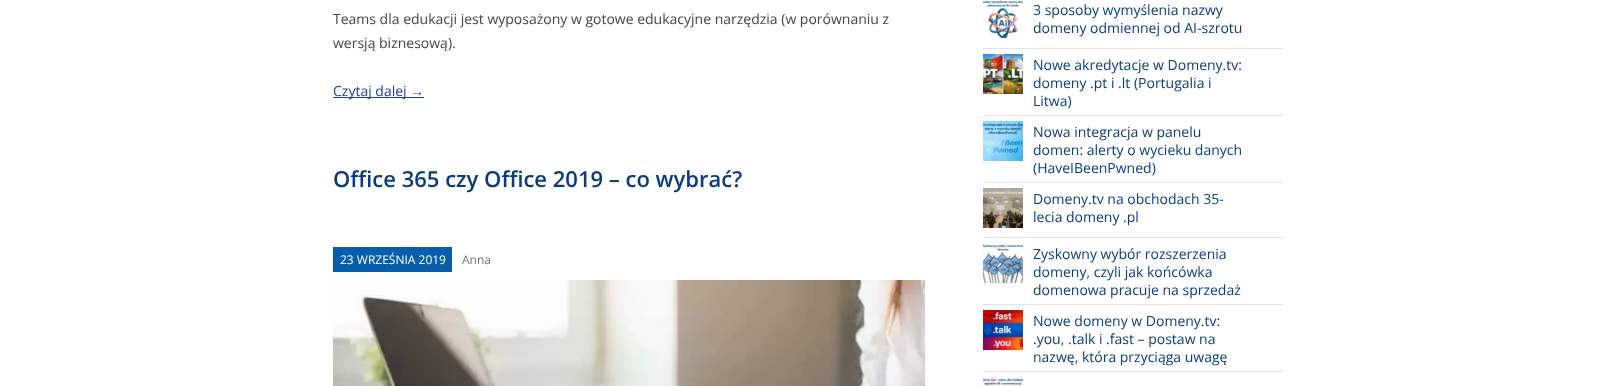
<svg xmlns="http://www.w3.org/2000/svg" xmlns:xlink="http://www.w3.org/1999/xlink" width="1605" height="386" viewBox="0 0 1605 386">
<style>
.cls-1{font:14px Open Sans;fill:#444444}
.cls-2{font:14px Open Sans;fill:#1b3f95}
.cls-3{font:14px Liberation Sans;fill:#1b3f95}
.cls-4{font:600 22px Open Sans;fill:#0a3c7b}
.cls-5{font:12px Open Sans;fill:#ffffff}
.cls-6{font:12px Open Sans;fill:#757575}
.cls-7{font:14px Open Sans;fill:#0a3c7b}
</style>
<rect width="100%" height="100%" fill="#ffffff"/>
<rect fill="#1b3f95" x="333" y="97" width="91" height="1"/>
<rect fill="#065dab" x="333" y="247" width="119" height="25"/>
<image xlink:href="image0.png" x="333" y="280" width="592" height="106"/>
<rect fill="#e4e4e4" x="983" y="48" width="300" height="1"/>
<image xlink:href="image1.png" x="983" y="0" width="40" height="39"/>
<rect fill="#e4e4e4" x="983" y="115" width="300" height="1"/>
<image xlink:href="image2.png" x="983" y="54" width="40" height="40"/>
<rect fill="#e4e4e4" x="983" y="182" width="300" height="1"/>
<image xlink:href="image3.png" x="983" y="121" width="40" height="40"/>
<rect fill="#e4e4e4" x="983" y="237" width="300" height="1"/>
<image xlink:href="image4.png" x="983" y="188" width="40" height="40"/>
<rect fill="#e4e4e4" x="983" y="304" width="300" height="1"/>
<image xlink:href="image5.png" x="983" y="243" width="40" height="40"/>
<rect fill="#e4e4e4" x="983" y="371" width="300" height="1"/>
<image xlink:href="image6.png" x="983" y="310" width="40" height="40"/>
<image xlink:href="image7.png" x="983" y="377" width="40" height="9"/>
<text class="cls-1"><tspan x="333" y="24">Teams dla edukacji jest wyposażony w gotowe edukacyjne narzędzia (w porównaniu z</tspan><tspan x="333" y="48">wersją biznesową).</tspan></text>
<text class="cls-2" x="333" y="96">Czytaj dalej</text>
<text class="cls-3" x="410" y="96">→</text>
<text class="cls-4" x="333" y="187">Office 365 czy Office 2019 – co wybrać?</text>
<text class="cls-5" x="340" y="264">23 WRZEŚNIA 2019</text>
<text class="cls-6" x="462" y="264">Anna</text>
<text class="cls-7"><tspan x="1033" y="15">3 sposoby wymyślenia nazwy</tspan><tspan x="1033" y="33">domeny odmiennej od AI-szrotu</tspan></text>
<text class="cls-7"><tspan x="1033" y="70">Nowe akredytacje w Domeny.tv:</tspan><tspan x="1033" y="88">domeny .pt i .lt (Portugalia i</tspan><tspan x="1033" y="106">Litwa)</tspan></text>
<text class="cls-7"><tspan x="1033" y="137">Nowa integracja w panelu</tspan><tspan x="1033" y="155">domen: alerty o wycieku danych</tspan><tspan x="1033" y="173">(HaveIBeenPwned)</tspan></text>
<text class="cls-7"><tspan x="1033" y="204">Domeny.tv na obchodach 35-</tspan><tspan x="1033" y="222">lecia domeny .pl</tspan></text>
<text class="cls-7"><tspan x="1033" y="259">Zyskowny wybór rozszerzenia</tspan><tspan x="1033" y="277">domeny, czyli jak końcówka</tspan><tspan x="1033" y="295">domenowa pracuje na sprzedaż</tspan></text>
<text class="cls-7"><tspan x="1033" y="326">Nowe domeny w Domeny.tv:</tspan><tspan x="1033" y="344">.you, .talk i .fast – postaw na</tspan><tspan x="1033" y="362">nazwę, która przyciąga uwagę</tspan></text>
</svg>
